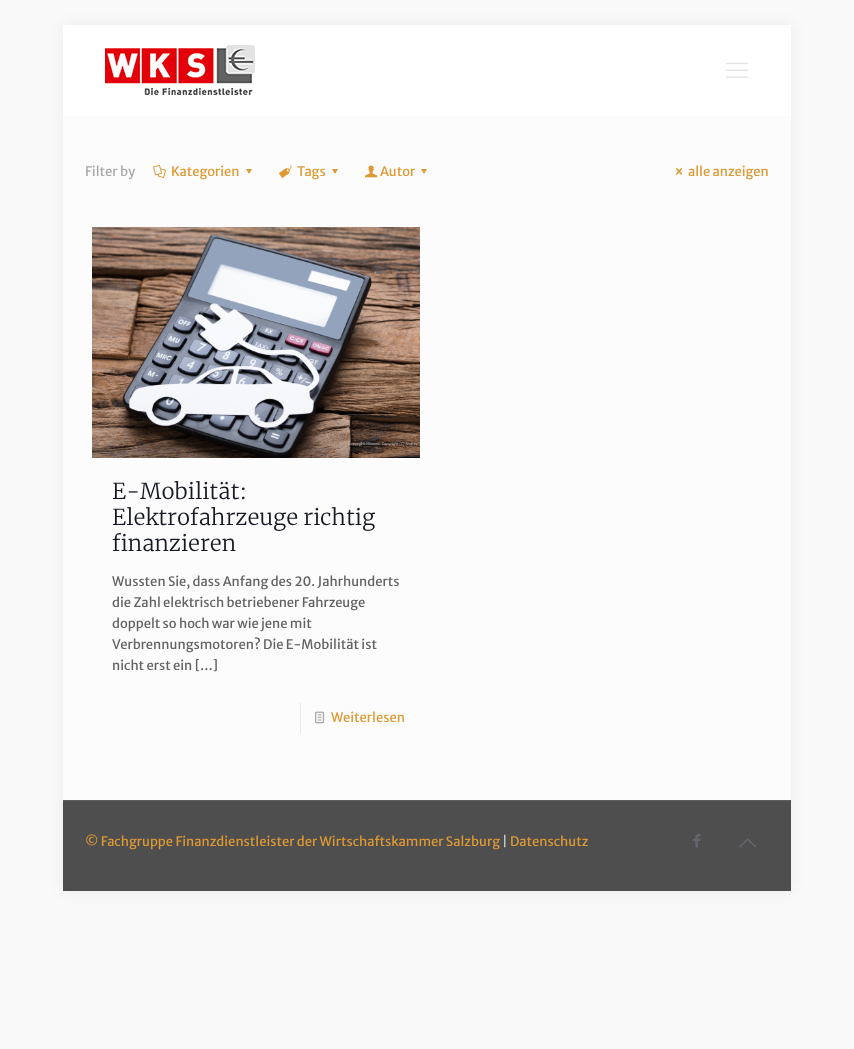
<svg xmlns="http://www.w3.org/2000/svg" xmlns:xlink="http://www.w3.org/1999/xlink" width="854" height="1049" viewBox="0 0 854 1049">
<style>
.cls-1{font:13px Merriweather Sans;fill:#a8a8a8}
.cls-2{font:13px Merriweather Sans;fill:#dd9933}
.cls-3{font:300 22px Merriweather;fill:#161922}
.cls-4{font:13px Merriweather Sans;fill:#626262}
.cls-5{font:13px Merriweather Sans;fill:#cccccc}
</style>
<rect width="100%" height="100%" fill="#f9f9f9"/>
<rect fill="#000000" fill-opacity="0.06" filter="blur(7.5px)" x="63" y="25" width="728" height="866"/>
<rect fill="#fcfcfc" x="63" y="116" width="728" height="684"/>
<rect fill="#ffffff" x="63" y="25" width="728" height="91"/>
<image xlink:href="image0.png" x="105" y="45" width="150" height="50"/>
<image xlink:href="image1.png" x="726" y="62" width="22" height="16"/>
<image xlink:href="image2.png" x="153" y="165" width="13" height="13"/>
<path fill="#dd9933" d="M252 169L249 174L246 169Z"/>
<image xlink:href="image3.png" x="279" y="165" width="13" height="13"/>
<path fill="#dd9933" d="M338 169L335 174L332 169Z"/>
<image xlink:href="image4.png" x="365" y="165" width="13" height="13"/>
<path fill="#dd9933" d="M427 169L424 174L421 169Z"/>
<image xlink:href="image5.png" x="676" y="168" width="7" height="7"/>
<image xlink:href="image6.png" x="92" y="227" width="328" height="231"/>
<rect fill="#e8e8e8" x="300" y="703" width="1" height="30"/>
<image xlink:href="image7.png" x="315" y="711" width="10" height="13"/>
<rect fill="#4e4e4f" x="63" y="801" width="728" height="90"/>
<rect fill="#606061" x="63" y="800" width="728" height="1"/>
<image xlink:href="image8.png" x="693" y="834" width="8" height="14"/>
<image xlink:href="image9.png" x="739" y="838" width="17" height="10"/>
<text class="cls-1" x="85" y="176">Filter by</text>
<text class="cls-2" x="171" y="176">Kategorien</text>
<text class="cls-2" x="297" y="176">Tags</text>
<text class="cls-2" x="380" y="176">Autor</text>
<text class="cls-2" x="688" y="176">alle anzeigen</text>
<text class="cls-3"><tspan x="112" y="499">E-Mobilität:</tspan><tspan x="112" y="525">Elektrofahrzeuge richtig</tspan><tspan x="112" y="551">finanzieren</tspan></text>
<text class="cls-4"><tspan x="112" y="586">Wussten Sie, dass Anfang des 20. Jahrhunderts</tspan><tspan x="112" y="607">die Zahl elektrisch betriebener Fahrzeuge</tspan><tspan x="112" y="628">doppelt so hoch war wie jene mit</tspan><tspan x="112" y="649">Verbrennungsmotoren? Die E-Mobilität ist</tspan><tspan x="112" y="670">nicht erst ein […]</tspan></text>
<text class="cls-2" x="331" y="722">Weiterlesen</text>
<text class="cls-2" x="85" y="846">© Fachgruppe Finanzdienstleister der Wirtschaftskammer Salzburg</text>
<text class="cls-5" x="502" y="846">|</text>
<text class="cls-2" x="510" y="846">Datenschutz</text>
</svg>
